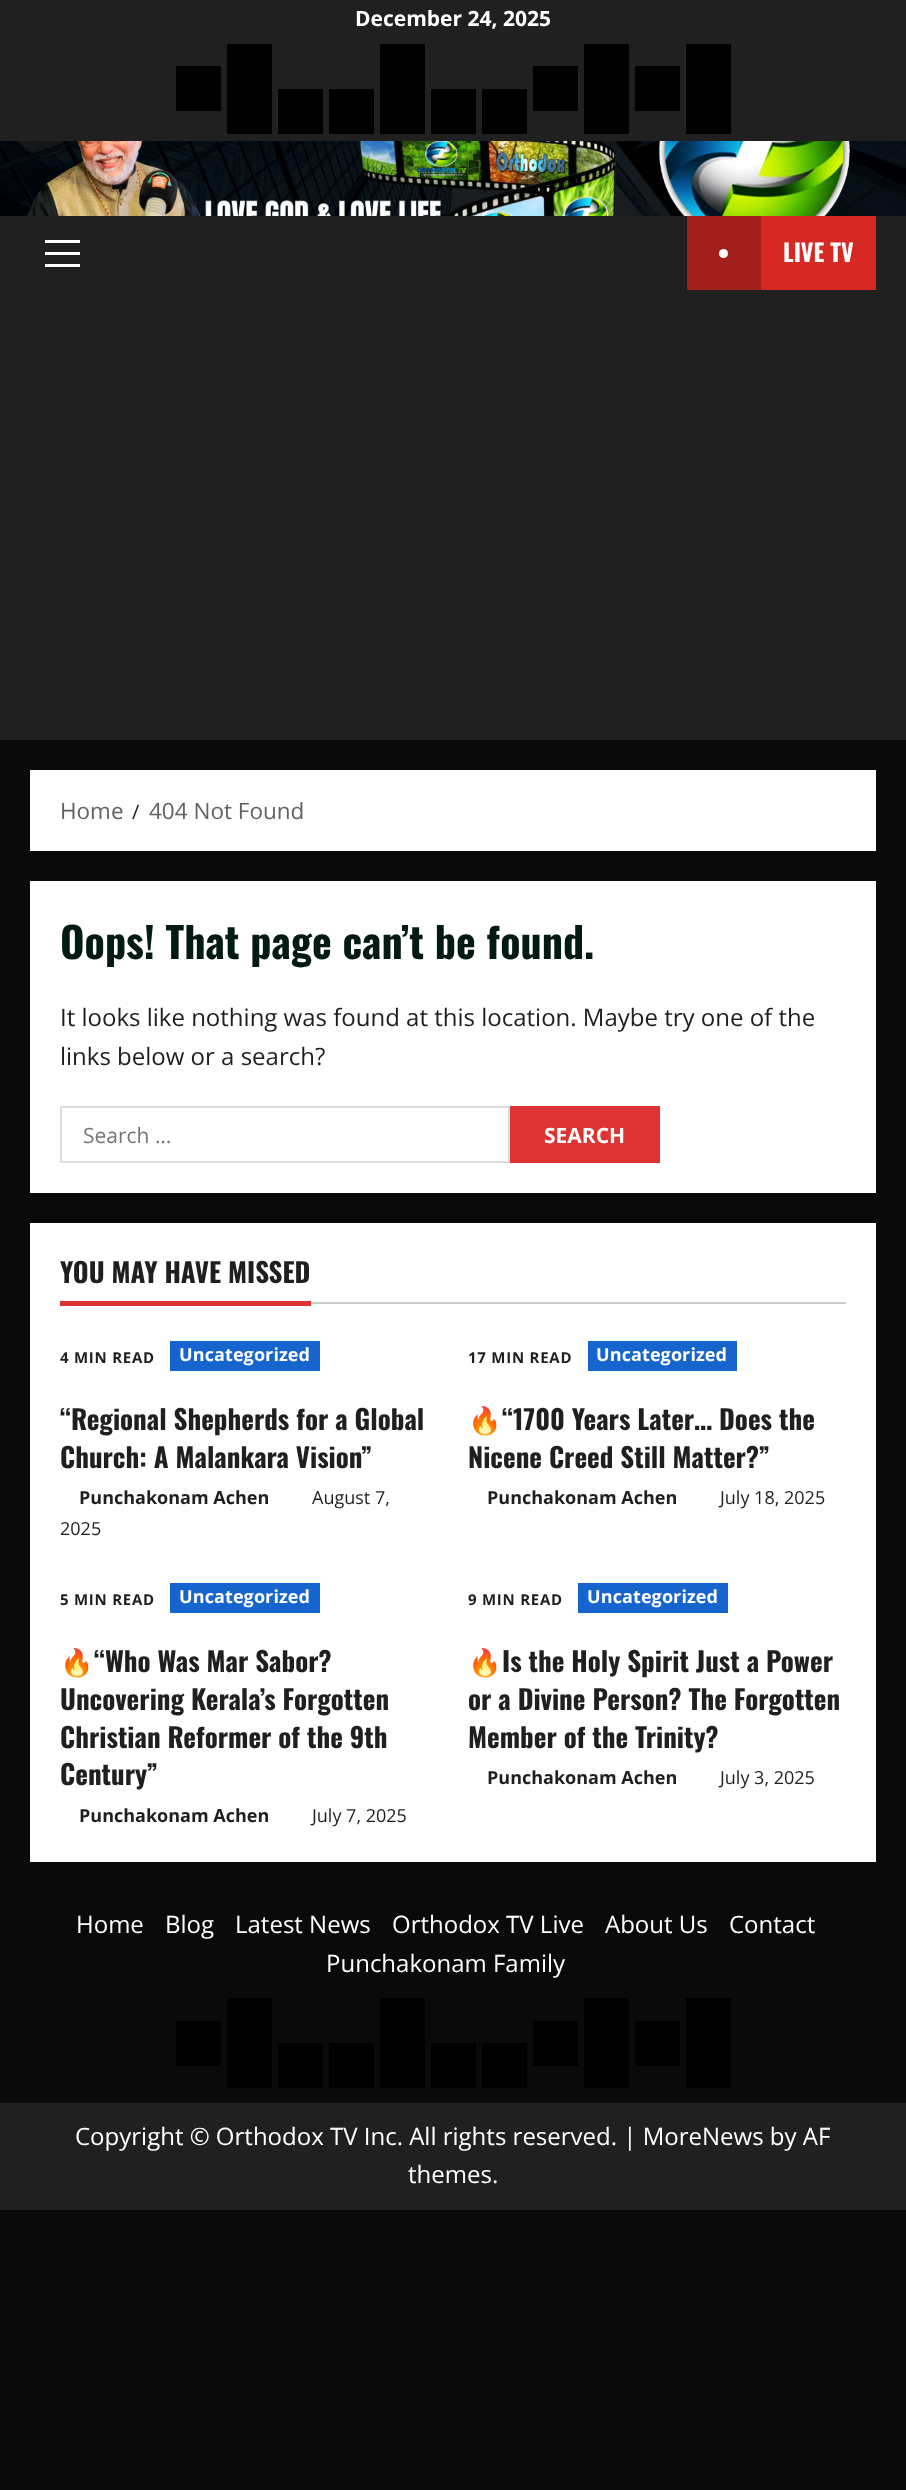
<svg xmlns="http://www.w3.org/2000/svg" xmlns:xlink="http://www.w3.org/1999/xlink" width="906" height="2490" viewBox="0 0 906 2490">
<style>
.cls-1{font:bold 21px Open Sans;fill:#ffffff}
.cls-2{font:bold 24px Oswald;fill:#ffffff}
.cls-3{font:22.5px Open Sans;fill:#626262}
.cls-4{font:20px Open Sans;fill:#1f1f1f}
.cls-5{font:bold 42px Oswald;fill:#031b11}
.cls-6{font:24px Open Sans;fill:#1f1f1f}
.cls-7{font:21px Open Sans;fill:#757575}
.cls-8{font:bold 27px Oswald;fill:#1f1f1f}
.cls-9{font:bold 15px Open Sans;letter-spacing:0.75px;fill:#1f1f1f}
.cls-10{font:bold 18px Open Sans;letter-spacing:0.1px;fill:#ffffff}
.cls-11{font:bold 18px Open Sans;fill:#1f1f1f}
.cls-12{font:18px Open Sans;fill:#1f1f1f}
.cls-13{font:bold 27px Noto Color Emoji;fill:#1f1f1f}
.cls-14{font:24px Open Sans;fill:#ffffff}
</style>
<rect width="100%" height="100%" fill="#0a0a0a"/>
<rect fill="#202020" x="0" y="0" width="906" height="141"/>
<rect fill="#000000" x="176" y="66" width="45" height="45"/>
<rect fill="#000000" x="227" y="44" width="45" height="90"/>
<rect fill="#000000" x="278" y="89" width="45" height="45"/>
<rect fill="#000000" x="329" y="89" width="45" height="45"/>
<rect fill="#000000" x="380" y="44" width="45" height="90"/>
<rect fill="#000000" x="431" y="89" width="45" height="45"/>
<rect fill="#000000" x="482" y="89" width="45" height="45"/>
<rect fill="#000000" x="533" y="66" width="45" height="45"/>
<rect fill="#000000" x="584" y="44" width="45" height="90"/>
<rect fill="#000000" x="635" y="66" width="45" height="45"/>
<rect fill="#000000" x="686" y="44" width="45" height="90"/>
<image xlink:href="image0.png" x="0" y="141" width="906" height="75"/>
<rect fill="#202020" x="0" y="216" width="906" height="524"/>
<rect fill="#ffffff" x="45" y="252" width="35" height="3"/>
<rect fill="#ffffff" x="45" y="240" width="35" height="3"/>
<rect fill="#ffffff" x="45" y="264" width="35" height="3"/>
<rect fill="#d72924" x="761" y="216" width="115" height="74"/>
<rect fill="#a11f1b" x="687" y="216" width="74" height="74"/>
<circle fill="#ffffff" cx="723.5" cy="253.5" r="4.5"/>
<rect fill="#ffffff" x="30" y="770" width="846" height="81"/>
<rect fill="#ffffff" x="30" y="881" width="846" height="312"/>
<rect fill="none" stroke="#dcdcdc" stroke-width="2" x="61" y="1107" width="448" height="55"/>
<rect fill="#dd3333" x="510" y="1106" width="150" height="57"/>
<rect fill="#ffffff" x="30" y="1223" width="846" height="639"/>
<rect fill="#cccccc" x="311" y="1302" width="535" height="2"/>
<rect fill="#dd3333" x="60" y="1301" width="251" height="5"/>
<rect fill="#1665cf" x="170" y="1341" width="150" height="30"/>
<rect fill="#1665cf" x="588" y="1341" width="149" height="30"/>
<rect fill="#1665cf" x="170" y="1583" width="150" height="30"/>
<rect fill="#1665cf" x="578" y="1583" width="150" height="30"/>
<rect fill="#000000" x="176" y="2021" width="45" height="45"/>
<rect fill="#000000" x="227" y="1998" width="45" height="90"/>
<rect fill="#000000" x="278" y="2043" width="45" height="45"/>
<rect fill="#000000" x="329" y="2043" width="45" height="45"/>
<rect fill="#000000" x="380" y="1998" width="45" height="90"/>
<rect fill="#000000" x="431" y="2043" width="45" height="45"/>
<rect fill="#000000" x="482" y="2043" width="45" height="45"/>
<rect fill="#000000" x="533" y="2021" width="45" height="45"/>
<rect fill="#000000" x="584" y="1998" width="45" height="90"/>
<rect fill="#000000" x="635" y="2021" width="45" height="45"/>
<rect fill="#000000" x="686" y="1998" width="45" height="90"/>
<rect fill="#202020" x="0" y="2103" width="906" height="107"/>
<text class="cls-1" x="355" y="26">December 24, 2025</text>
<text class="cls-2" x="783" y="262">LIVE TV</text>
<text class="cls-3" x="60" y="819">Home</text>
<text class="cls-4" x="132" y="819">/</text>
<text class="cls-3" x="149" y="819">404 Not Found</text>
<text class="cls-5" x="60" y="959">Oops! That page can’t be found.</text>
<text class="cls-6"><tspan x="60" y="1026">It looks like nothing was found at this location. Maybe try one of the</tspan><tspan x="60" y="1065">links below or a search?</tspan></text>
<text class="cls-7" x="83" y="1143">Search …</text>
<text class="cls-1" x="544" y="1143">SEARCH</text>
<text class="cls-8" x="60" y="1283">YOU MAY HAVE MISSED</text>
<text class="cls-9" x="60" y="1363">4 MIN READ</text>
<text class="cls-10" x="179" y="1361">Uncategorized</text>
<text class="cls-8"><tspan x="60" y="1430">“Regional Shepherds for a Global</tspan><tspan x="60" y="1468">Church: A Malankara Vision”</tspan></text>
<text class="cls-11" x="79" y="1504">Punchakonam Achen</text>
<text class="cls-12" x="312" y="1504">August 7,</text>
<text class="cls-12" x="60" y="1535">2025</text>
<text class="cls-9" x="468" y="1363">17 MIN READ</text>
<text class="cls-10" x="596" y="1361">Uncategorized</text>
<text class="cls-13" x="468" y="1430">🔥</text>
<text class="cls-8" x="502" y="1430">“1700 Years Later… Does the</text>
<text class="cls-8" x="468" y="1468">Nicene Creed Still Matter?”</text>
<text class="cls-11" x="487" y="1504">Punchakonam Achen</text>
<text class="cls-12" x="720" y="1504">July 18, 2025</text>
<text class="cls-9" x="60" y="1605">5 MIN READ</text>
<text class="cls-10" x="179" y="1603">Uncategorized</text>
<text class="cls-13" x="60" y="1672">🔥</text>
<text class="cls-8" x="94" y="1672">“Who Was Mar Sabor?</text>
<text class="cls-8"><tspan x="60" y="1710">Uncovering Kerala’s Forgotten</tspan><tspan x="60" y="1748">Christian Reformer of the 9th</tspan><tspan x="60" y="1785">Century”</tspan></text>
<text class="cls-11" x="79" y="1822">Punchakonam Achen</text>
<text class="cls-12" x="312" y="1822">July 7, 2025</text>
<text class="cls-9" x="468" y="1605">9 MIN READ</text>
<text class="cls-10" x="587" y="1603">Uncategorized</text>
<text class="cls-13" x="468" y="1672">🔥</text>
<text class="cls-8" x="502" y="1672">Is the Holy Spirit Just a Power</text>
<text class="cls-8"><tspan x="468" y="1710">or a Divine Person? The Forgotten</tspan><tspan x="468" y="1748">Member of the Trinity?</tspan></text>
<text class="cls-11" x="487" y="1784">Punchakonam Achen</text>
<text class="cls-12" x="720" y="1784">July 3, 2025</text>
<text class="cls-14" x="76" y="1933">Home</text>
<text class="cls-14" x="165" y="1933">Blog</text>
<text class="cls-14" x="235" y="1933">Latest News</text>
<text class="cls-14" x="392" y="1933">Orthodox TV Live</text>
<text class="cls-14" x="605" y="1933">About Us</text>
<text class="cls-14" x="729" y="1933">Contact</text>
<text class="cls-14" x="326" y="1972">Punchakonam Family</text>
<text class="cls-14" x="75" y="2145">Copyright © Orthodox TV Inc. All rights reserved. | MoreNews by AF</text>
<text class="cls-14" x="408" y="2183">themes.</text>
</svg>
